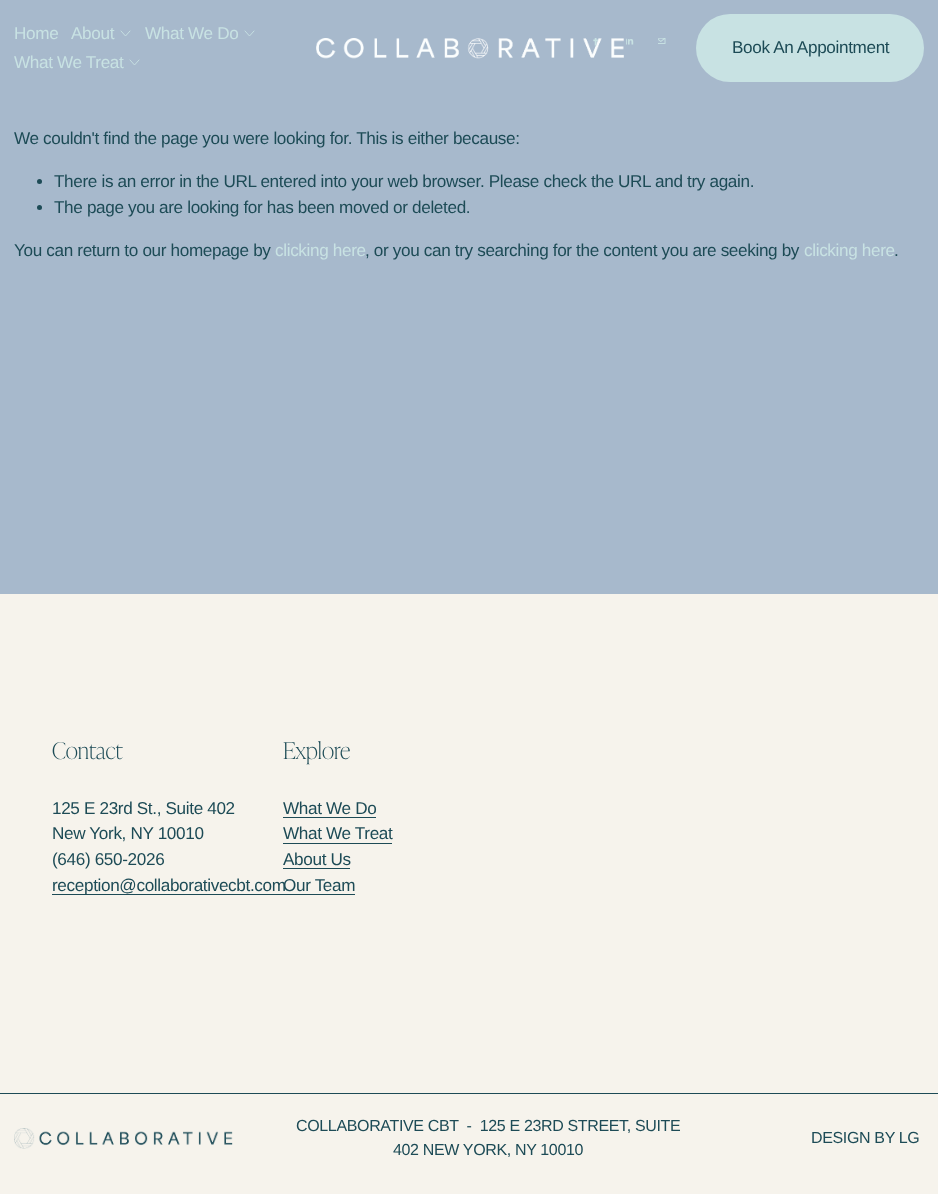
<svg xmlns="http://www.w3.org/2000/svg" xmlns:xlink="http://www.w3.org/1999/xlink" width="938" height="1194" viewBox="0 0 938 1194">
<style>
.cls-1{font:17.15px Liberation Sans;letter-spacing:-0.35px;fill:#c8e2e3}
.cls-2{font:17.15px Liberation Sans;letter-spacing:-0.35px;fill:#1d4b56}
.cls-3{font:100 23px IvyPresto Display;fill:#1d4b56}
.cls-4{font:16px Liberation Sans;letter-spacing:-0.35px;fill:#1d4b56}
</style>
<rect width="100%" height="100%" fill="#a7b9cc"/>
<path fill="none" stroke="#c8e2e3" stroke-width="0.9" stroke-linecap="round" stroke-linejoin="round" d="M130 31L125.5 36L121 31"/>
<path fill="none" stroke="#c8e2e3" stroke-width="0.9" stroke-linecap="round" stroke-linejoin="round" d="M254 31L249.5 36L245 31"/>
<path fill="none" stroke="#c8e2e3" stroke-width="0.9" stroke-linecap="round" stroke-linejoin="round" d="M139 60L134.5 65L130 60"/>
<image xlink:href="image0.png" x="316" y="38" width="308" height="21"/>
<image xlink:href="image1.png" x="593" y="38" width="5" height="8"/>
<image xlink:href="image2.png" x="626" y="38" width="8" height="7"/>
<image xlink:href="image3.png" x="658" y="38" width="8" height="6"/>
<rect fill="#c8e2e3" x="696" y="14" width="228" height="68" rx="34"/>
<circle fill="#1d4b56" cx="39.5" cy="181.5" r="2.5"/>
<circle fill="#1d4b56" cx="39.5" cy="207.5" r="2.5"/>
<rect fill="#f6f3ec" x="0" y="594" width="938" height="600"/>
<rect fill="#1d4b56" x="52" y="894" width="234" height="1"/>
<rect fill="#1d4b56" x="283" y="817" width="93" height="1"/>
<rect fill="#1d4b56" x="283" y="843" width="109" height="1"/>
<rect fill="#1d4b56" x="283" y="868" width="67" height="1"/>
<rect fill="#1d4b56" x="283" y="894" width="72" height="1"/>
<rect fill="#1d4b56" x="0" y="1093" width="938" height="1"/>
<image xlink:href="image4.png" x="14" y="1128" width="219" height="21"/>
<text class="cls-1" x="14" y="39">Home</text>
<text class="cls-1" x="71" y="39">About</text>
<text class="cls-1" x="145" y="39">What We Do</text>
<text class="cls-1" x="14" y="68">What We Treat</text>
<text class="cls-2" x="732" y="53">Book An Appointment</text>
<text class="cls-2" x="14" y="144">We couldn't find the page you were looking for. This is either because:</text>
<text class="cls-2"><tspan x="54" y="187">There is an error in the URL entered into your web browser. Please check the URL and try again.</tspan><tspan x="54" y="213">The page you are looking for has been moved or deleted.</tspan></text>
<text class="cls-2" x="14" y="256">You can return to our homepage by</text>
<text class="cls-1" x="275" y="256">clicking here</text>
<text class="cls-2" x="365" y="256">, or you can try searching for the content you are seeking by</text>
<text class="cls-1" x="804" y="256">clicking here</text>
<text class="cls-2" x="894" y="256">.</text>
<text class="cls-3" x="52" y="759">Contact</text>
<text class="cls-2"><tspan x="52" y="814">125 E 23rd St., Suite 402</tspan><tspan x="52" y="839">New York, NY 10010</tspan><tspan x="52" y="865">(646) 650-2026</tspan><tspan x="52" y="891">reception@collaborativecbt.com</tspan></text>
<text class="cls-3" x="283" y="759">Explore</text>
<text class="cls-2"><tspan x="283" y="814">What We Do</tspan><tspan x="283" y="839">What We Treat</tspan><tspan x="283" y="865">About Us</tspan><tspan x="283" y="891">Our Team</tspan></text>
<text class="cls-4" xml:space="preserve" x="296" y="1131">COLLABORATIVE CBT  -  125 E 23RD STREET, SUITE</text>
<text class="cls-4" x="393" y="1155">402 NEW YORK, NY 10010</text>
<text class="cls-4" x="811" y="1143">DESIGN BY LG</text>
</svg>
